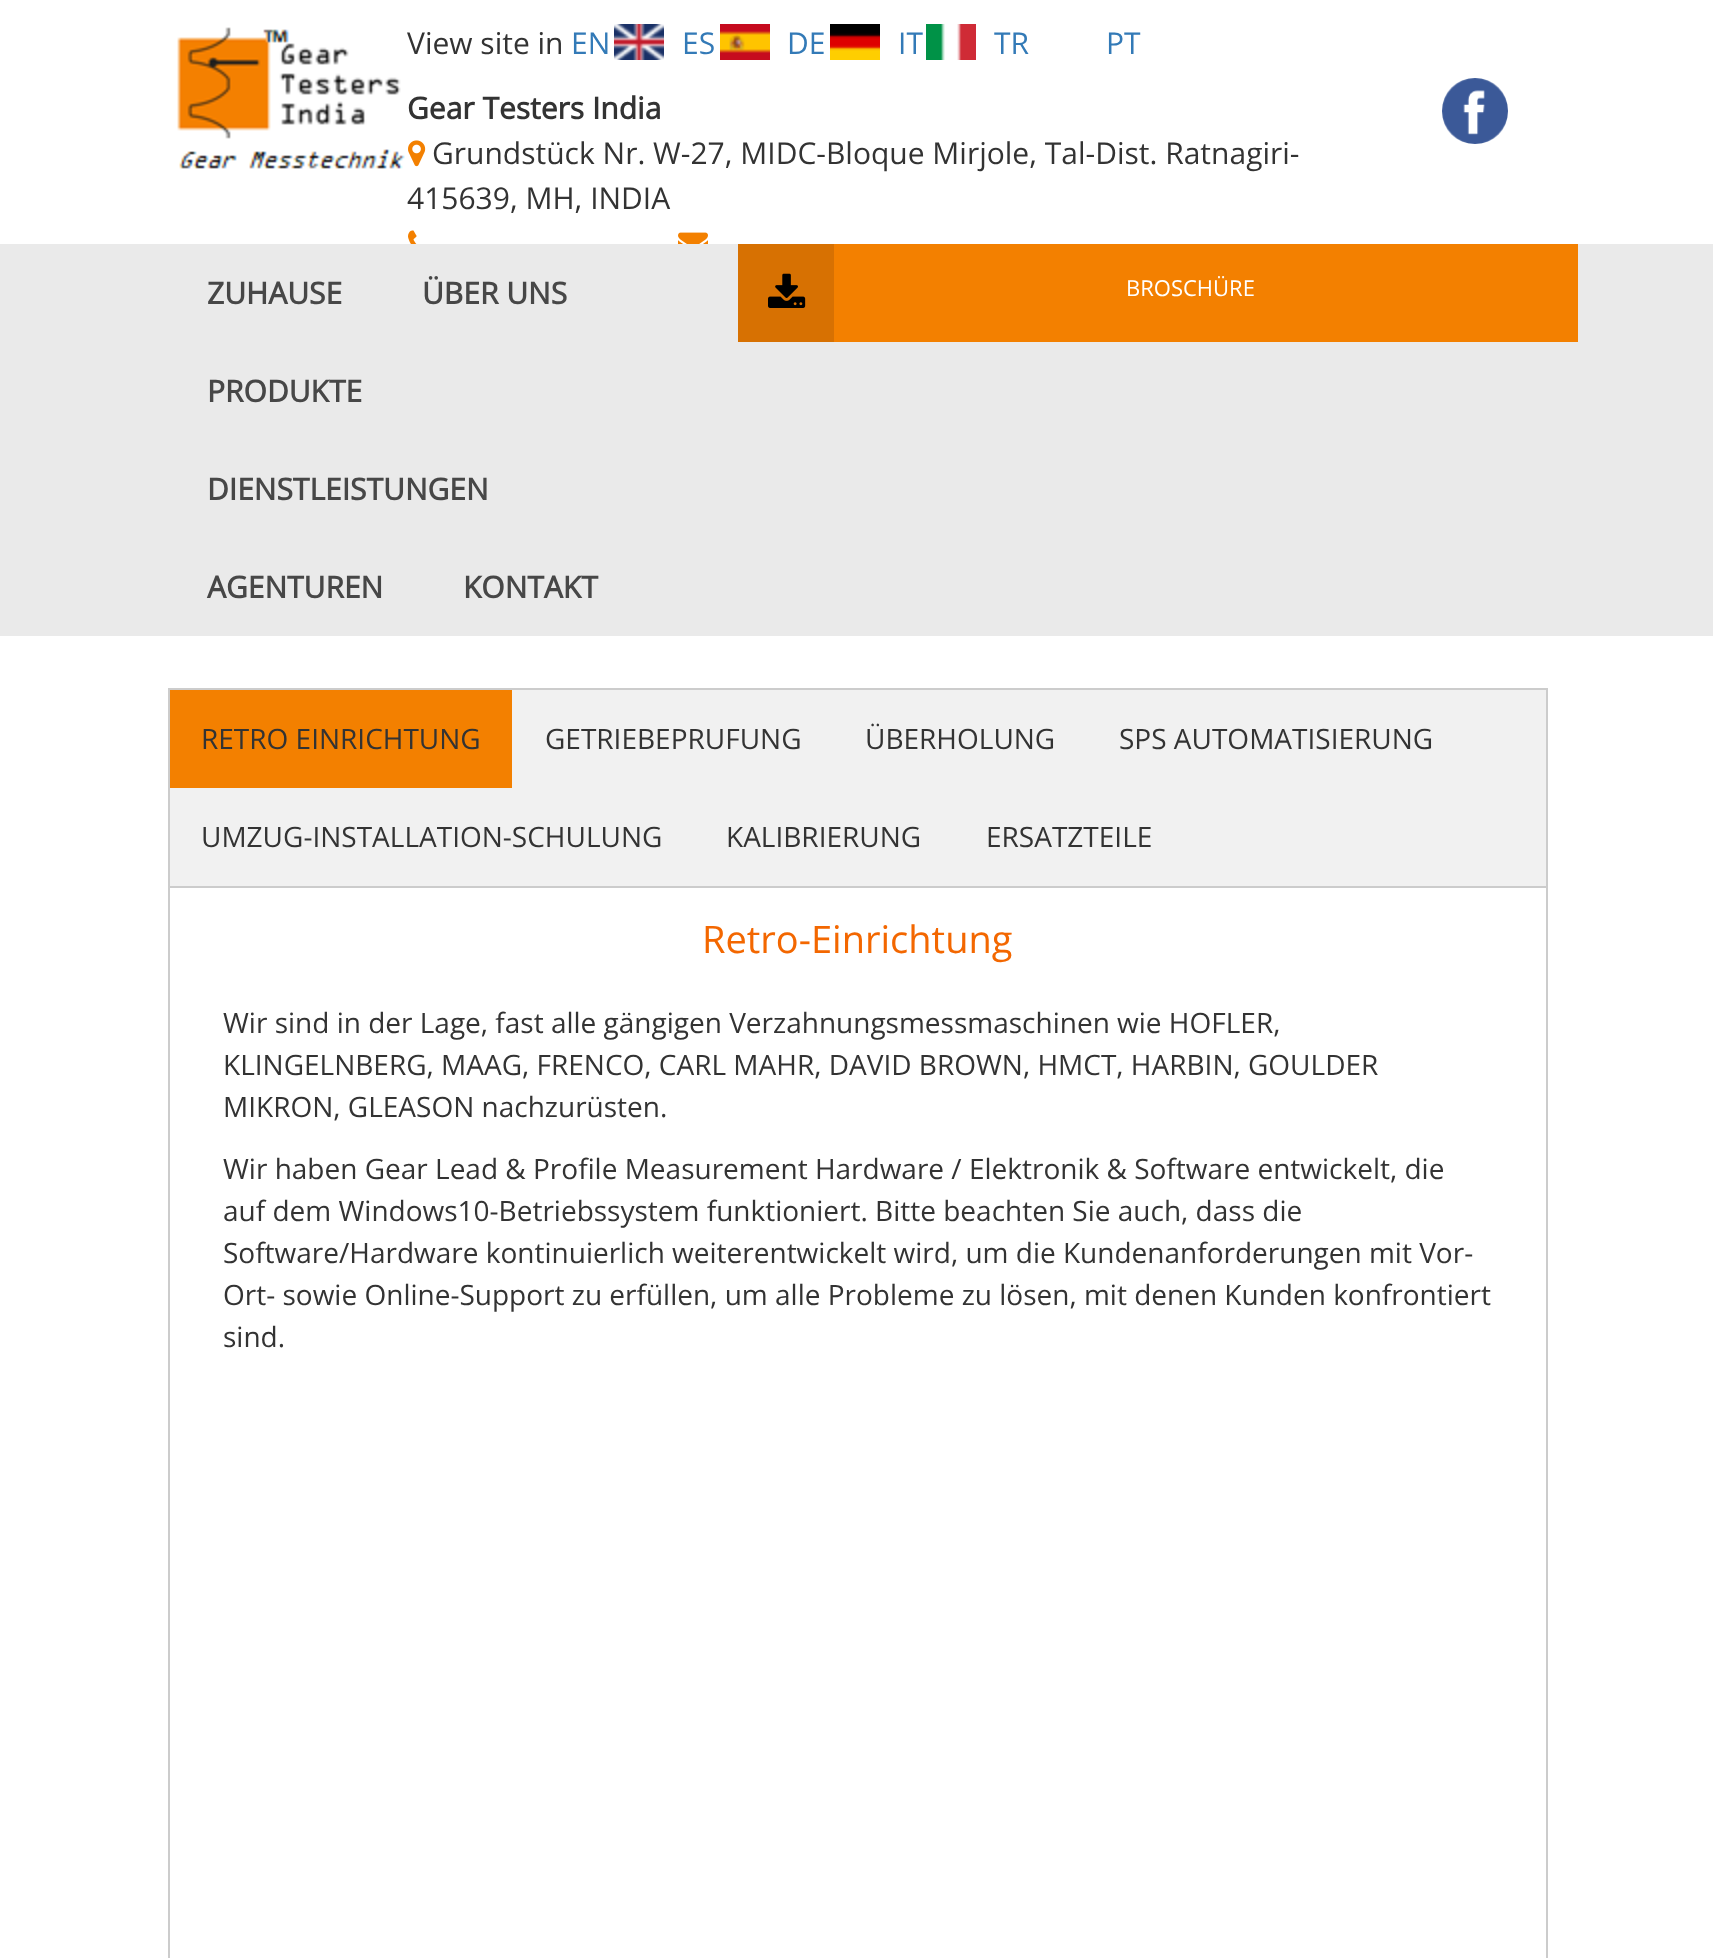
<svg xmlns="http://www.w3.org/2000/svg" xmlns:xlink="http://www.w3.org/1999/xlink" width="1713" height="1958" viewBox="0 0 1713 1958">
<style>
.cls-1{font:30px Open Sans;fill:#333333}
.cls-2{font:30px Open Sans;fill:#337ab7}
.cls-3{font:bold 30px Open Sans;fill:#333333}
.cls-4{font:bold 30px Open Sans;fill:#474747}
.cls-5{font:22px Open Sans;fill:#ffffff}
.cls-6{font:28px Open Sans;fill:#333333}
.cls-7{font:38px Open Sans;fill:#f36700}
</style>
<rect width="100%" height="100%" fill="#ffffff"/>
<image xlink:href="image0.png" x="177" y="27" width="228" height="142"/>
<image xlink:href="image1.png" x="614" y="24" width="50" height="36"/>
<image xlink:href="image2.png" x="720" y="24" width="50" height="36"/>
<image xlink:href="image3.png" x="830" y="24" width="50" height="36"/>
<image xlink:href="image4.png" x="926" y="24" width="50" height="36"/>
<image xlink:href="image5.png" x="408" y="140" width="18" height="27"/>
<image xlink:href="image6.png" x="408" y="230" width="9" height="14"/>
<image xlink:href="image7.png" x="678" y="232" width="30" height="12"/>
<image xlink:href="image8.png" x="1442" y="78" width="66" height="66"/>
<rect fill="#eaeaea" x="0" y="244" width="1713" height="392"/>
<rect fill="#f38000" x="834" y="244" width="744" height="98"/>
<rect fill="#d77102" x="738" y="244" width="96" height="98"/>
<image xlink:href="image9.png" x="768" y="273" width="38" height="35"/>
<rect fill="#f1f1f1" stroke="#cccccc" stroke-width="2" x="169" y="689" width="1378" height="198"/>
<rect fill="#f38000" x="170" y="690" width="342" height="98"/>
<rect fill="#cccccc" x="1546" y="888" width="2" height="1070"/>
<rect fill="#cccccc" x="168" y="888" width="2" height="1070"/>
<text class="cls-1" x="407" y="54">View site in</text>
<text class="cls-2" x="571" y="54">EN</text>
<text class="cls-2" x="682" y="54">ES</text>
<text class="cls-2" x="787" y="54">DE</text>
<text class="cls-2" x="898" y="54">IT</text>
<text class="cls-2" x="994" y="54">TR</text>
<text class="cls-2" x="1106" y="54">PT</text>
<text class="cls-3" x="407" y="119">Gear Testers India</text>
<text class="cls-1" x="432" y="164">Grundstück Nr. W-27, MIDC-Bloque Mirjole, Tal-Dist. Ratnagiri-</text>
<text class="cls-1" x="407" y="209">415639, MH, INDIA</text>
<text class="cls-4" x="207" y="304">ZUHAUSE</text>
<text class="cls-4" x="422" y="304">ÜBER UNS</text>
<text class="cls-4" x="207" y="402">PRODUKTE</text>
<text class="cls-4" x="207" y="500">DIENSTLEISTUNGEN</text>
<text class="cls-4" x="207" y="598">AGENTUREN</text>
<text class="cls-4" x="463" y="598">KONTAKT</text>
<text class="cls-5" x="1126" y="296">BROSCHÜRE</text>
<text class="cls-6" x="201" y="749">RETRO EINRICHTUNG</text>
<text class="cls-6" x="545" y="749">GETRIEBEPRUFUNG</text>
<text class="cls-6" x="865" y="749">ÜBERHOLUNG</text>
<text class="cls-6" x="1119" y="749">SPS AUTOMATISIERUNG</text>
<text class="cls-6" x="201" y="847">UMZUG-INSTALLATION-SCHULUNG</text>
<text class="cls-6" x="726" y="847">KALIBRIERUNG</text>
<text class="cls-6" x="986" y="847">ERSATZTEILE</text>
<text class="cls-7" x="702" y="953">Retro-Einrichtung</text>
<text class="cls-6"><tspan x="223" y="1033">Wir sind in der Lage, fast alle gängigen Verzahnungsmessmaschinen wie HOFLER,</tspan><tspan x="223" y="1075">KLINGELNBERG, MAAG, FRENCO, CARL MAHR, DAVID BROWN, HMCT, HARBIN, GOULDER</tspan><tspan x="223" y="1117">MIKRON, GLEASON nachzurüsten.</tspan></text>
<text class="cls-6"><tspan x="223" y="1179">Wir haben Gear Lead &amp; Profile Measurement Hardware / Elektronik &amp; Software entwickelt, die</tspan><tspan x="223" y="1221">auf dem Windows10-Betriebssystem funktioniert. Bitte beachten Sie auch, dass die</tspan><tspan x="223" y="1263">Software/Hardware kontinuierlich weiterentwickelt wird, um die Kundenanforderungen mit Vor-</tspan><tspan x="223" y="1305">Ort- sowie Online-Support zu erfüllen, um alle Probleme zu lösen, mit denen Kunden konfrontiert</tspan><tspan x="223" y="1347">sind.</tspan></text>
</svg>
